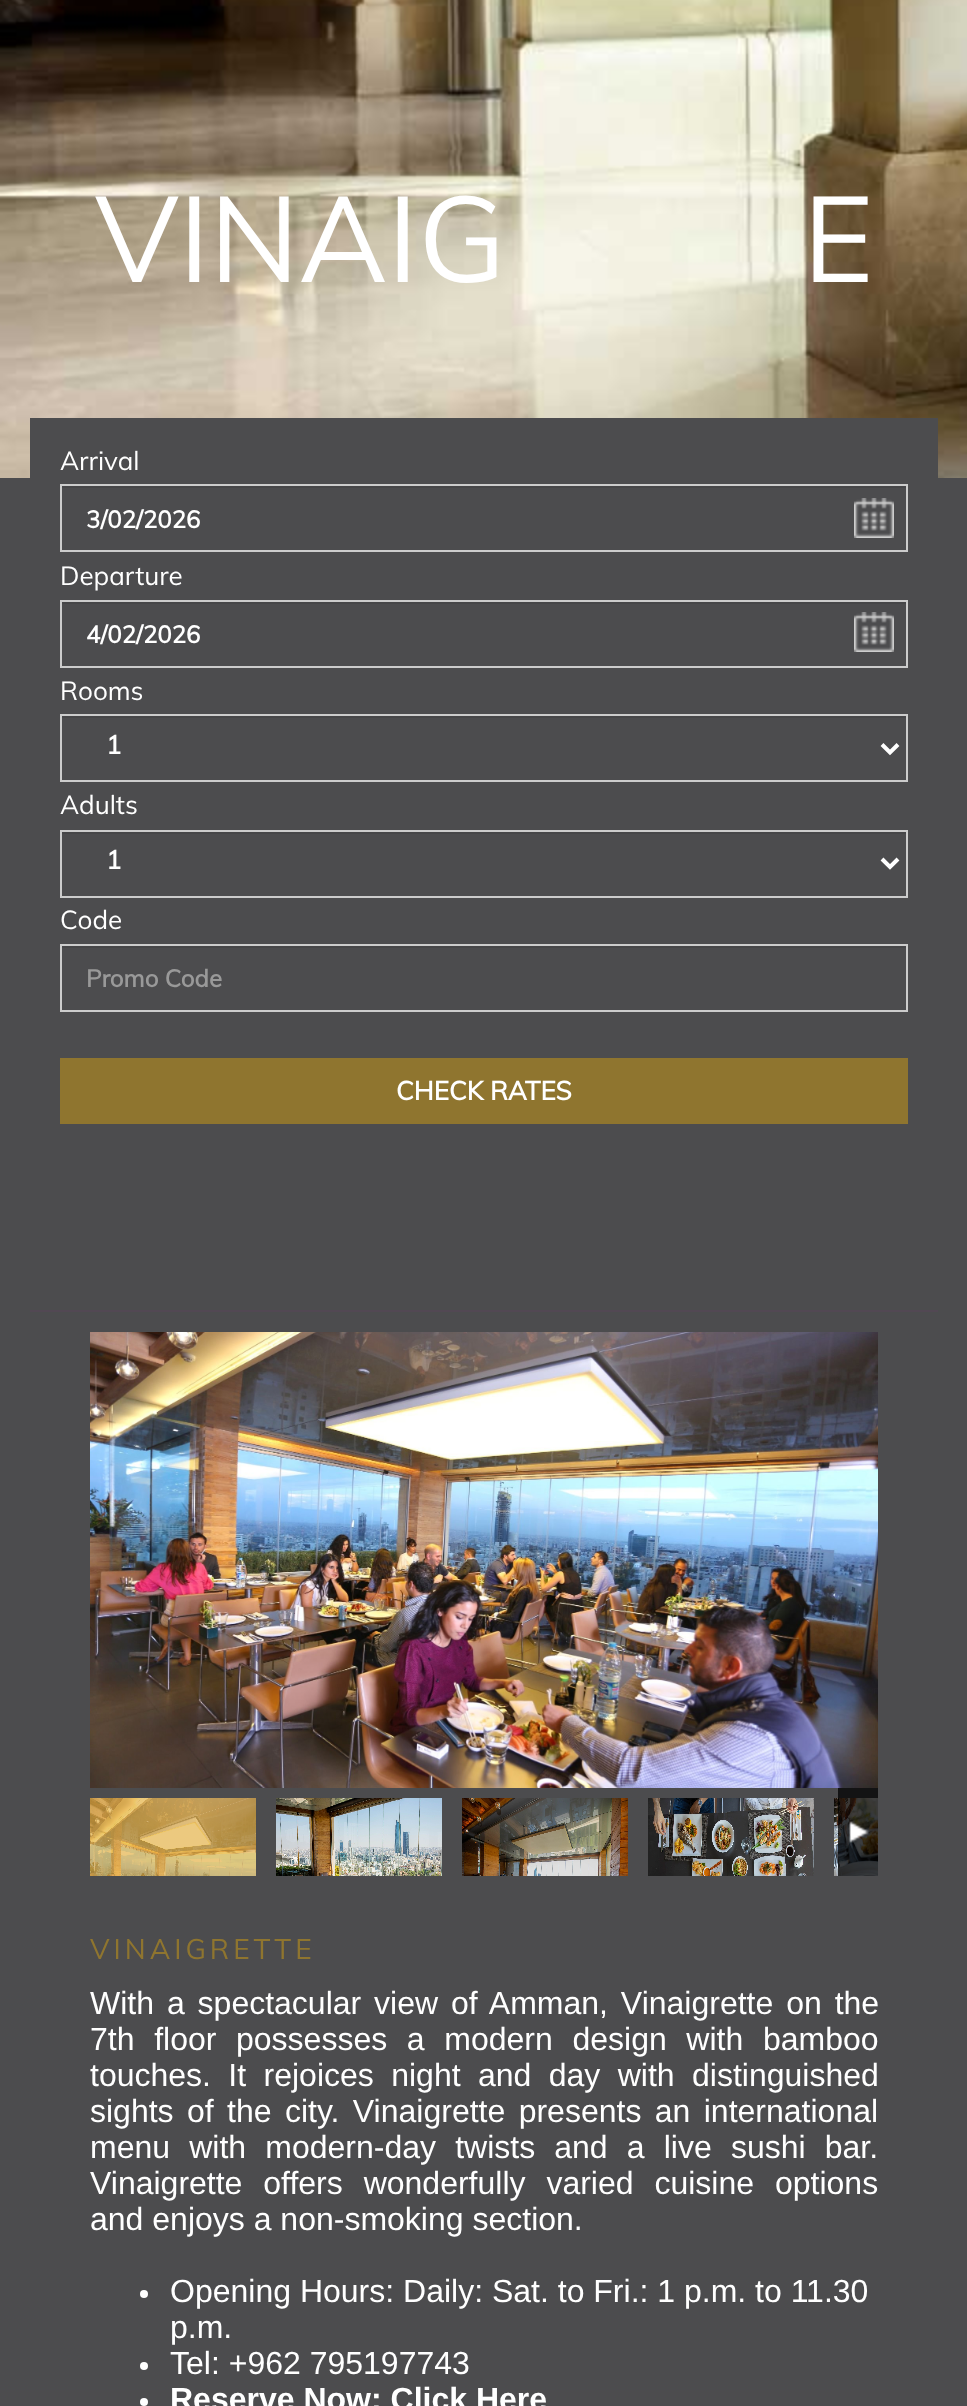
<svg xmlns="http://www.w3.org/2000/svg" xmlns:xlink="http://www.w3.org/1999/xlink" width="967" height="2406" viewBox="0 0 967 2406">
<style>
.cls-1{font:120px Muli;fill:#ffffff}
.cls-2{font:26px Muli;fill:#ffffff}
.cls-3{font:bold 24px Muli;fill:#ffffff}
.cls-4{font:bold 26px Muli;fill:#ffffff}
.cls-5{font:bold 24px Muli;fill:#999999}
.cls-6{font:28px Muli;letter-spacing:4px;fill:#8f752f}
.cls-7{font:32px Liberation Sans;fill:#ffffff}
.cls-8{font:bold 32px Liberation Sans;fill:#ffffff}
</style>
<rect width="100%" height="100%" fill="#4c4c4e"/>
<rect fill="#131314" x="838" y="1788" width="40" height="10"/>
<image xlink:href="image0.png" x="0" y="0" width="967" height="478"/>
<rect fill="#4c4c4e" x="30" y="418" width="908" height="60"/>
<rect fill="#524853" x="30" y="1310" width="908" height="2"/>
<rect fill="#464648" x="62" y="486" width="844" height="2"/>
<rect fill="none" stroke="#cccccc" stroke-width="2" x="61" y="485" width="846" height="66"/>
<image xlink:href="image1.png" x="854" y="498" width="40" height="40"/>
<rect fill="#464648" x="62" y="602" width="844" height="2"/>
<rect fill="none" stroke="#cccccc" stroke-width="2" x="61" y="601" width="846" height="66"/>
<image xlink:href="image1.png" x="854" y="612" width="40" height="40"/>
<rect fill="#464648" x="62" y="716" width="844" height="2"/>
<rect fill="none" stroke="#cccccc" stroke-width="2" x="61" y="715" width="846" height="66"/>
<path fill="none" stroke="#ffffff" stroke-width="4" d="M882 744.5L890 752.5L898 744.5"/>
<rect fill="#464648" x="62" y="832" width="844" height="2"/>
<rect fill="none" stroke="#cccccc" stroke-width="2" x="61" y="831" width="846" height="66"/>
<path fill="none" stroke="#ffffff" stroke-width="4" d="M882 859L890 867L898 859"/>
<rect fill="#464648" x="62" y="946" width="844" height="2"/>
<rect fill="none" stroke="#cccccc" stroke-width="2" x="61" y="945" width="846" height="66"/>
<rect fill="#8f752f" x="60" y="1058" width="848" height="66"/>
<image xlink:href="image2.png" x="90" y="1332" width="788" height="456"/>
<rect fill="#e4b248" x="90" y="1798" width="166" height="78"/>
<image xlink:href="image3.png" x="90" y="1798" width="166" height="78"/>
<image xlink:href="image4.png" x="276" y="1798" width="166" height="78"/>
<image xlink:href="image5.png" x="462" y="1798" width="166" height="78"/>
<image xlink:href="image6.png" x="648" y="1798" width="166" height="78"/>
<image xlink:href="image7.png" x="834" y="1798" width="44" height="78"/>
<image xlink:href="image8.png" x="849" y="1821" width="20" height="22"/>
<circle fill="#ffffff" cx="144" cy="2294" r="4"/>
<circle fill="#ffffff" cx="144" cy="2366" r="4"/>
<circle fill="#ffffff" cx="144" cy="2402" r="4"/>
<text class="cls-1" x="95" y="282">VINAIG</text>
<text class="cls-1" x="803" y="282">E</text>
<text class="cls-2" x="60" y="470">Arrival</text>
<text class="cls-3" x="86" y="528">3/02/2026</text>
<text class="cls-2" x="60" y="585">Departure</text>
<text class="cls-3" x="86" y="643">4/02/2026</text>
<text class="cls-2" x="60" y="700">Rooms</text>
<text class="cls-4" x="106" y="754">1</text>
<text class="cls-2" x="60" y="814">Adults</text>
<text class="cls-4" x="106" y="869">1</text>
<text class="cls-2" x="60" y="929">Code</text>
<text class="cls-5" x="86" y="987">Promo Code</text>
<text class="cls-4" x="396" y="1100">CHECK RATES</text>
<text class="cls-6" x="90" y="1959">VINAIGRETTE</text>
<text class="cls-7"><tspan x="90" y="2014" word-spacing="4">With a spectacular view of Amman, Vinaigrette on the</tspan><tspan x="90" y="2050" word-spacing="10.75">7th floor possesses a modern design with bamboo</tspan><tspan x="90" y="2086" word-spacing="8.5">touches. It rejoices night and day with distinguished</tspan><tspan x="90" y="2122" word-spacing="4.5">sights of the city. Vinaigrette presents an international</tspan><tspan x="90" y="2158" word-spacing="10.25">menu with modern-day twists and a live sushi bar.</tspan><tspan x="90" y="2194" word-spacing="12">Vinaigrette offers wonderfully varied cuisine options</tspan><tspan x="90" y="2230">and enjoys a non-smoking section.</tspan></text>
<text class="cls-7"><tspan x="170" y="2302">Opening Hours: Daily: Sat. to Fri.: 1 p.m. to 11.30</tspan><tspan x="170" y="2338">p.m.</tspan><tspan x="170" y="2374">Tel: +962 795197743</tspan></text>
<text class="cls-8" x="170" y="2410">Reserve Now: Click Here</text>
</svg>
